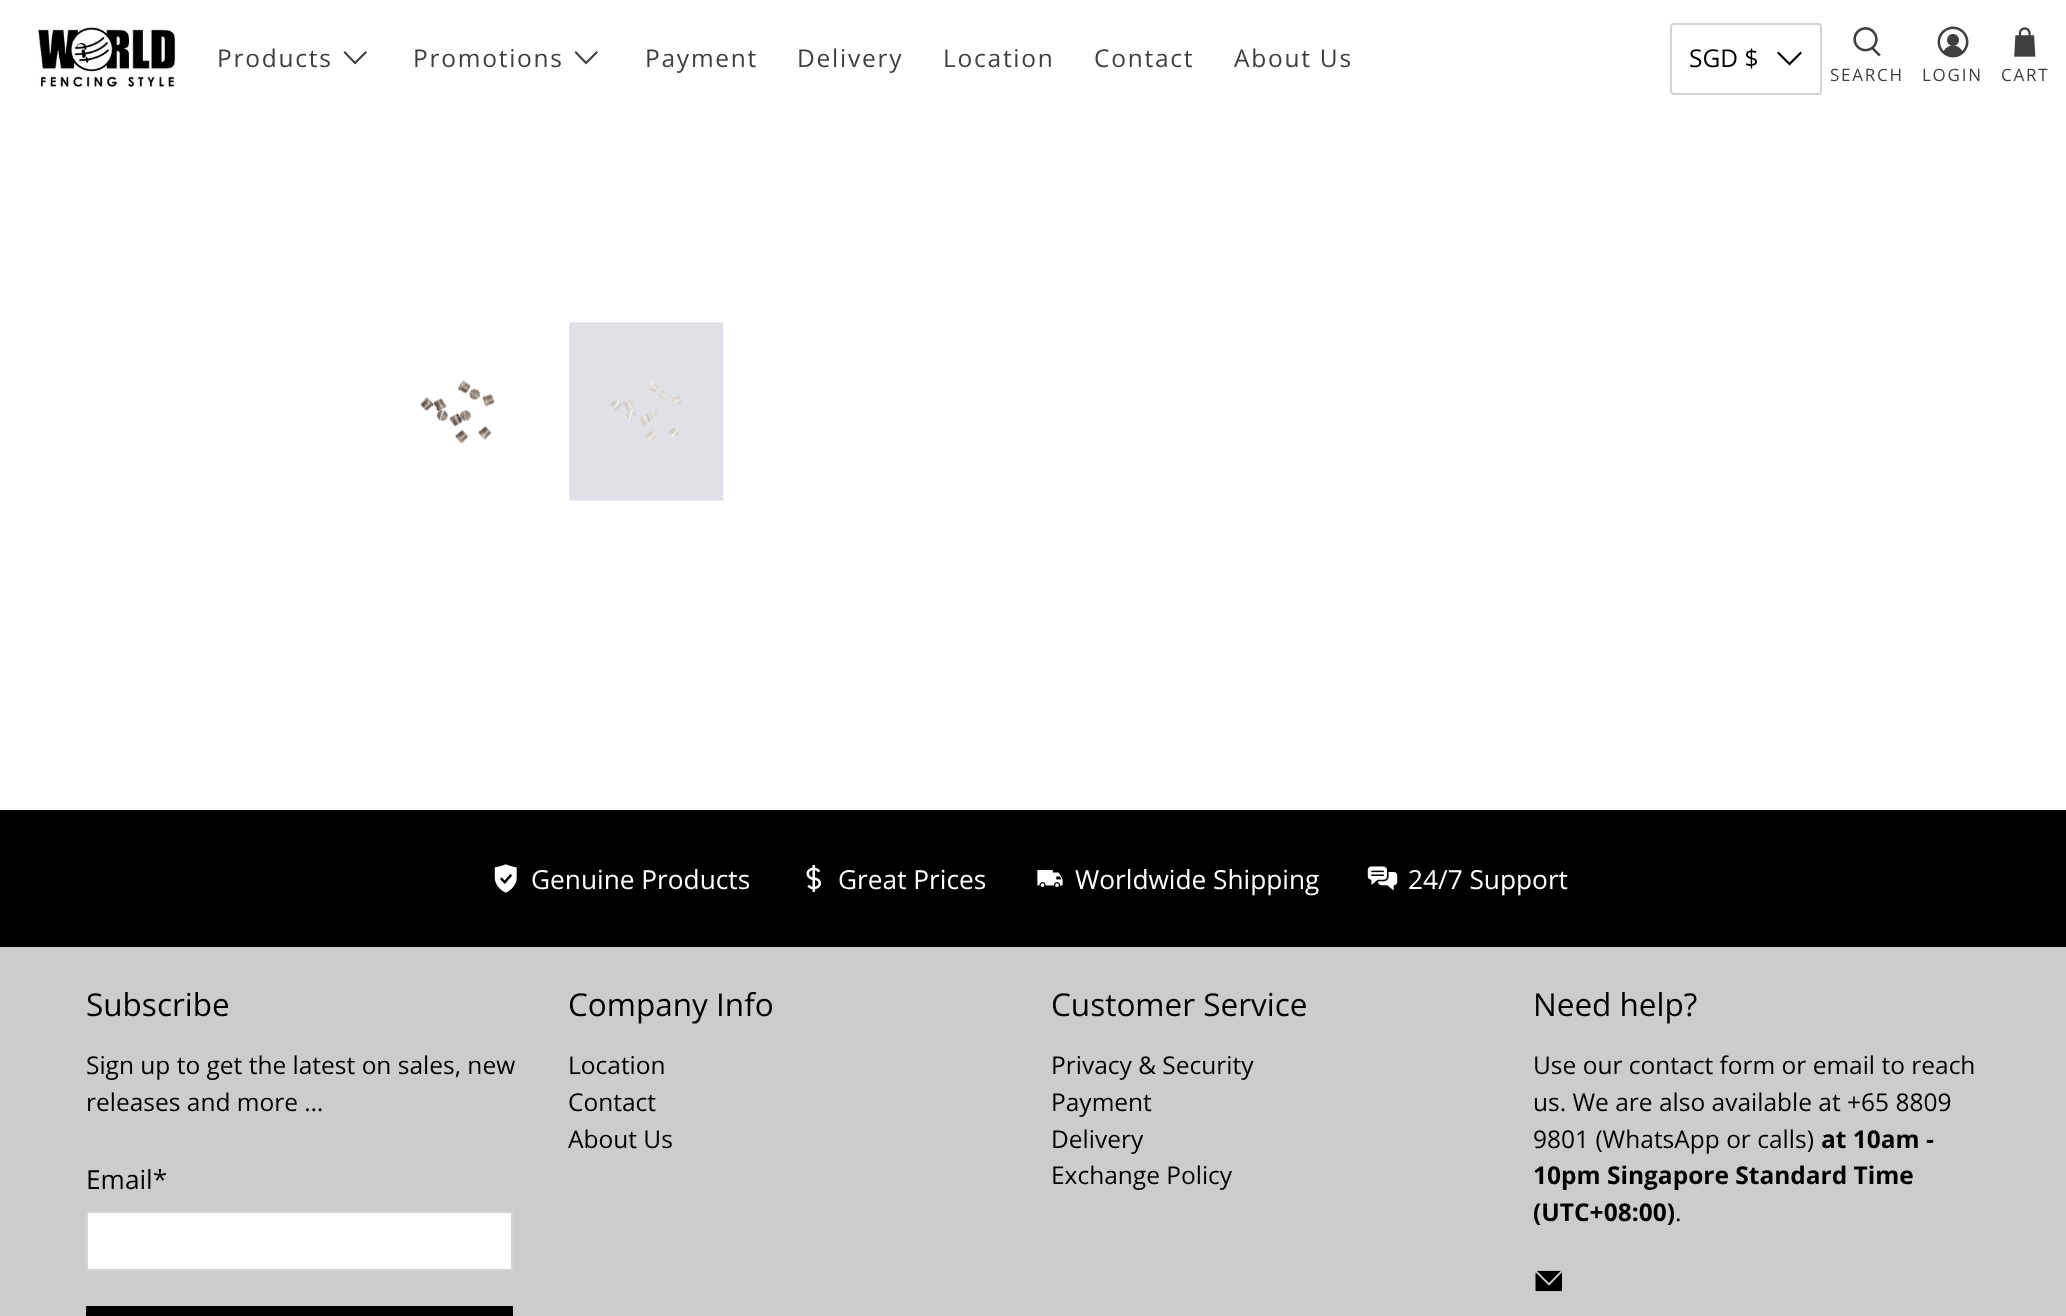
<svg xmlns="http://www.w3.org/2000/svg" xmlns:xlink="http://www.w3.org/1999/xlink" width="2066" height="1316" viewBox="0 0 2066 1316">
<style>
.cls-1{font:24.5px Open Sans;letter-spacing:1.75px;fill:#3f3f3f}
.cls-2{font:24.5px Open Sans;fill:#000000}
.cls-3{font:17px Open Sans;letter-spacing:1.75px;fill:#3f3f3f}
.cls-4{font:26.25px Open Sans;fill:#ffffff}
.cls-5{font:31.5px Open Sans;fill:#000000}
.cls-6{font:26.25px Open Sans;fill:#000000}
.cls-7{font:bold 24.5px Open Sans;fill:#000000}
</style>
<rect width="100%" height="100%" fill="#ffffff"/>
<image xlink:href="image0.png" x="38" y="26" width="138" height="62"/>
<path fill="#3f3f3f" d="M355 64.5L343.5 52.5L345 51L355 61.5L365.5 51L367 52.5Z"/>
<path fill="#3f3f3f" d="M586 64.5L574.5 52.5L576 51L586 61.5L596.5 51L598 52.5Z"/>
<rect fill="none" stroke="#d3d3d3" stroke-width="2" x="1671" y="24" width="150" height="70" rx="3"/>
<path fill="#000000" d="M1789.5 65.5L1777 53L1778.5 51.5L1789.5 62.5L1800.5 51.5L1802 53Z"/>
<image xlink:href="image1.png" x="1853" y="27" width="28" height="30"/>
<image xlink:href="image2.png" x="1937" y="26" width="32" height="32"/>
<image xlink:href="image3.png" x="2014" y="27" width="22" height="30"/>
<image xlink:href="image4.png" x="420" y="380" width="75" height="64"/>
<image xlink:href="image5.png" x="569" y="322" width="155" height="179"/>
<rect fill="#000000" x="0" y="810" width="2066" height="137"/>
<image xlink:href="image6.png" x="494" y="864" width="23" height="29"/>
<image xlink:href="image7.png" x="806" y="865" width="15" height="27"/>
<image xlink:href="image8.png" x="1037" y="870" width="26" height="17"/>
<image xlink:href="image9.png" x="1367" y="866" width="31" height="25"/>
<rect fill="#cccccc" x="0" y="947" width="2066" height="369"/>
<rect fill="#ffffff" stroke="#d3d3d3" stroke-width="2" x="87" y="1212" width="425" height="58"/>
<rect fill="#000000" x="86" y="1306" width="427" height="10"/>
<image xlink:href="image10.png" x="1535" y="1270" width="27" height="22"/>
<text class="cls-1" x="217" y="67">Products</text>
<text class="cls-1" x="413" y="67">Promotions</text>
<text class="cls-1" x="645" y="67">Payment</text>
<text class="cls-1" x="797" y="67">Delivery</text>
<text class="cls-1" x="943" y="67">Location</text>
<text class="cls-1" x="1094" y="67">Contact</text>
<text class="cls-1" x="1234" y="67">About Us</text>
<text class="cls-2" x="1689" y="67">SGD $</text>
<text class="cls-3" x="1830" y="81">SEARCH</text>
<text class="cls-3" x="1922" y="81">LOGIN</text>
<text class="cls-3" x="2001" y="81">CART</text>
<text class="cls-4" x="531" y="889">Genuine Products</text>
<text class="cls-4" x="838" y="889">Great Prices</text>
<text class="cls-4" x="1075" y="889">Worldwide Shipping</text>
<text class="cls-4" x="1408" y="889">24/7 Support</text>
<text class="cls-5" x="86" y="1016">Subscribe</text>
<text class="cls-2"><tspan x="86" y="1074">Sign up to get the latest on sales, new</tspan><tspan x="86" y="1111">releases and more …</tspan></text>
<text class="cls-6" x="86" y="1189">Email*</text>
<text class="cls-5" x="568" y="1016">Company Info</text>
<text class="cls-2"><tspan x="568" y="1074">Location</tspan><tspan x="568" y="1111">Contact</tspan><tspan x="568" y="1148">About Us</tspan></text>
<text class="cls-5" x="1051" y="1016">Customer Service</text>
<text class="cls-2"><tspan x="1051" y="1074">Privacy &amp; Security</tspan><tspan x="1051" y="1111">Payment</tspan><tspan x="1051" y="1148">Delivery</tspan><tspan x="1051" y="1184">Exchange Policy</tspan></text>
<text class="cls-5" x="1533" y="1016">Need help?</text>
<text class="cls-2"><tspan x="1533" y="1074">Use our contact form or email to reach</tspan><tspan x="1533" y="1111">us. We are also available at +65 8809</tspan><tspan x="1533" y="1148">9801 (WhatsApp or calls)</tspan></text>
<text class="cls-7" x="1821" y="1148">at 10am -</text>
<text class="cls-7"><tspan x="1533" y="1184">10pm Singapore Standard Time</tspan><tspan x="1533" y="1221">(UTC+08:00)</tspan></text>
<text class="cls-2" x="1675" y="1221">.</text>
</svg>
